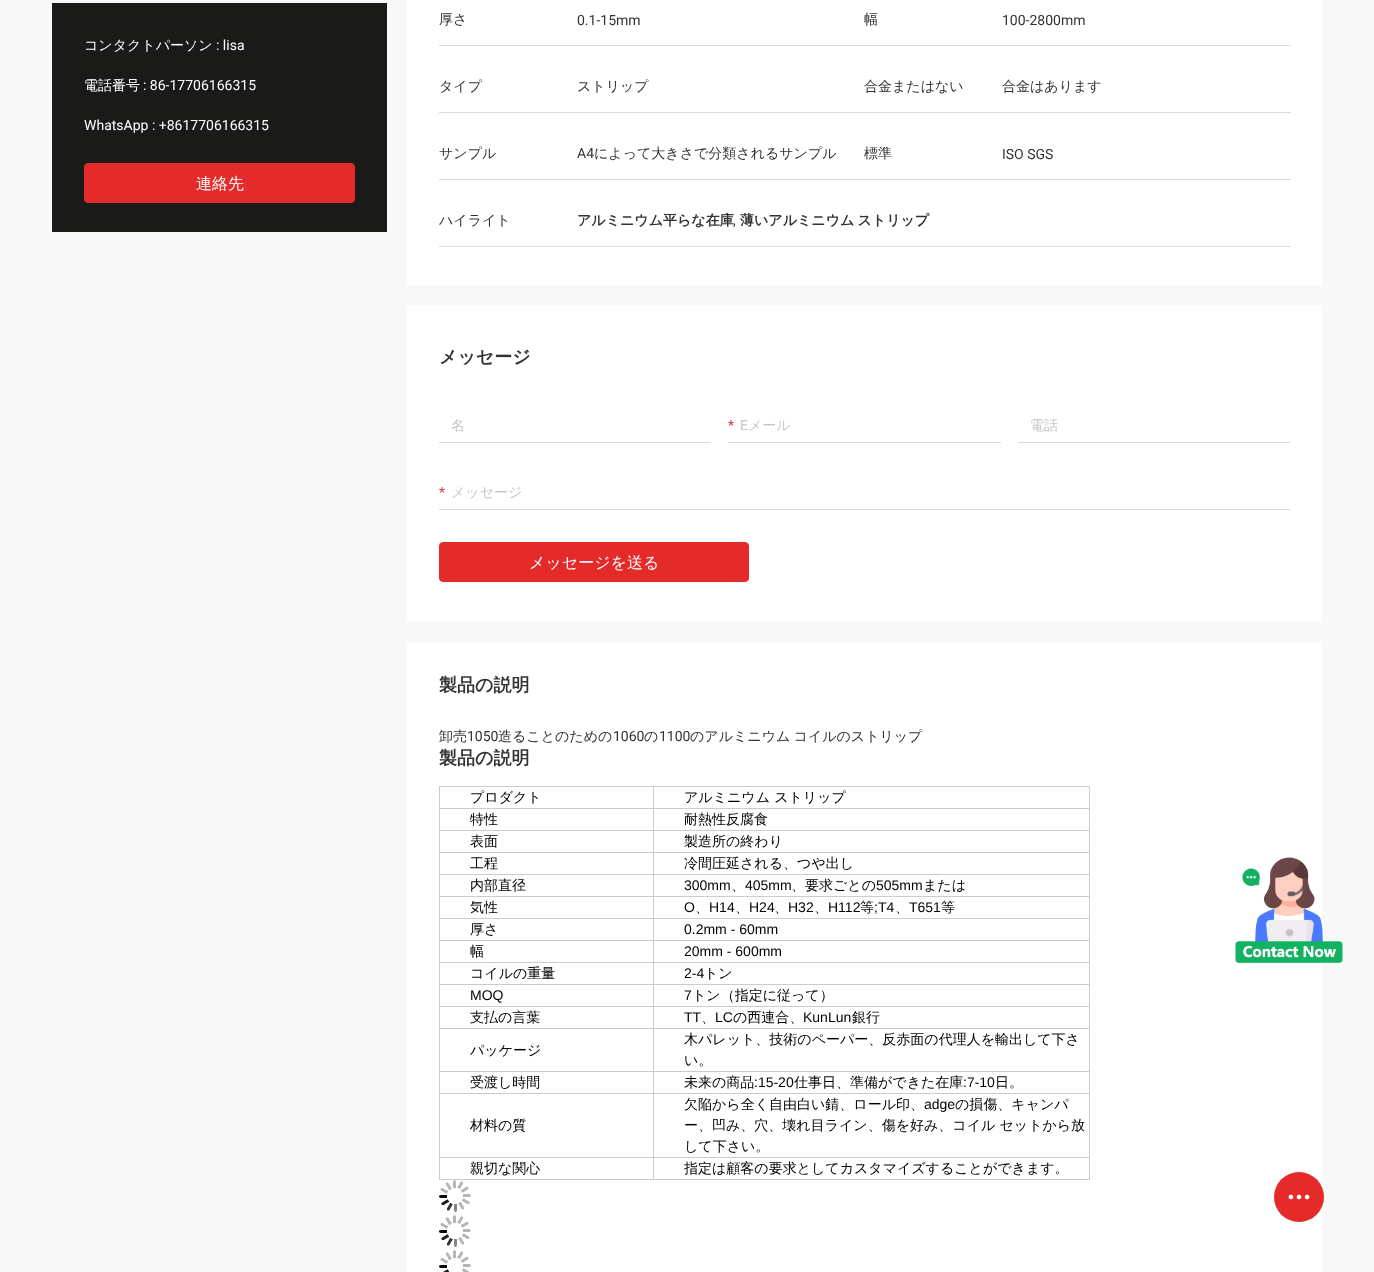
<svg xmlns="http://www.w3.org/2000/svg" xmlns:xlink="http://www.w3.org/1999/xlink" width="1374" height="1272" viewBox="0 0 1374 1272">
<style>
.cls-1{font:500 14px WenQuanYi Zen Hei;fill:#ffffff}
.cls-2{font:14px Roboto;fill:#ffffff}
.cls-3{font:500 16px WenQuanYi Zen Hei;fill:#ffffff}
.cls-4{font:500 14px WenQuanYi Zen Hei;fill:#333333}
.cls-5{font:14px Roboto;fill:#333333}
.cls-6{font:bold 14px WenQuanYi Zen Hei;fill:#333333}
.cls-7{font:bold 18px WenQuanYi Zen Hei;fill:#333333}
.cls-8{font:500 14px WenQuanYi Zen Hei;fill:#c7c7c7}
.cls-9{font:14px Roboto;fill:#e52a2a}
.cls-10{font:14px Roboto;fill:#c7c7c7}
.cls-11{font:500 14px WenQuanYi Zen Hei;fill:#000000}
.cls-12{font:14px Liberation Sans;fill:#000000}
</style>
<rect width="100%" height="100%" fill="#f8f8f8"/>
<rect fill="#1a1a19" x="52" y="3" width="335" height="229"/>
<rect fill="#e52a2a" stroke="#e52a2a" x="84.5" y="163.5" width="270" height="39" rx="3.5"/>
<rect fill="#ffffff" x="407" y="0" width="915" height="285"/>
<rect fill="#dcdcdc" x="439" y="45" width="852" height="1"/>
<rect fill="#dcdcdc" x="439" y="112" width="852" height="1"/>
<rect fill="#dcdcdc" x="439" y="179" width="852" height="1"/>
<rect fill="#dcdcdc" x="439" y="246" width="852" height="1"/>
<rect fill="#ffffff" x="407" y="305" width="915" height="317"/>
<rect fill="#dcdcdc" x="439" y="442" width="272" height="1"/>
<rect fill="#dcdcdc" x="728" y="442" width="273" height="1"/>
<rect fill="#dcdcdc" x="1018" y="442" width="272" height="1"/>
<rect fill="#dcdcdc" x="439" y="509" width="851" height="1"/>
<rect fill="#e52a2a" stroke="#e52a2a" x="439.5" y="542.5" width="309" height="39" rx="3.5"/>
<rect fill="#ffffff" x="407" y="642" width="915" height="630"/>
<rect fill="#cccccc" x="439" y="786" width="651" height="1"/>
<rect fill="#cccccc" x="1089" y="786" width="1" height="394"/>
<rect fill="#cccccc" x="439" y="1179" width="651" height="1"/>
<rect fill="#cccccc" x="439" y="786" width="1" height="394"/>
<rect fill="#cccccc" x="653" y="808" width="437" height="1"/>
<rect fill="#cccccc" x="653" y="830" width="437" height="1"/>
<rect fill="#cccccc" x="653" y="852" width="437" height="1"/>
<rect fill="#cccccc" x="653" y="874" width="437" height="1"/>
<rect fill="#cccccc" x="653" y="896" width="437" height="1"/>
<rect fill="#cccccc" x="653" y="918" width="437" height="1"/>
<rect fill="#cccccc" x="653" y="940" width="437" height="1"/>
<rect fill="#cccccc" x="653" y="962" width="437" height="1"/>
<rect fill="#cccccc" x="653" y="984" width="437" height="1"/>
<rect fill="#cccccc" x="653" y="1006" width="437" height="1"/>
<rect fill="#cccccc" x="653" y="1028" width="437" height="1"/>
<rect fill="#cccccc" x="653" y="1071" width="437" height="1"/>
<rect fill="#cccccc" x="653" y="1093" width="437" height="1"/>
<rect fill="#cccccc" x="653" y="1157" width="437" height="1"/>
<rect fill="#cccccc" x="653" y="1157" width="1" height="23"/>
<rect fill="#cccccc" x="439" y="1157" width="215" height="1"/>
<rect fill="#cccccc" x="653" y="1093" width="1" height="65"/>
<rect fill="#cccccc" x="439" y="1093" width="215" height="1"/>
<rect fill="#cccccc" x="653" y="1071" width="1" height="23"/>
<rect fill="#cccccc" x="439" y="1071" width="215" height="1"/>
<rect fill="#cccccc" x="653" y="1028" width="1" height="44"/>
<rect fill="#cccccc" x="439" y="1028" width="215" height="1"/>
<rect fill="#cccccc" x="653" y="1006" width="1" height="23"/>
<rect fill="#cccccc" x="439" y="1006" width="215" height="1"/>
<rect fill="#cccccc" x="653" y="984" width="1" height="23"/>
<rect fill="#cccccc" x="439" y="984" width="215" height="1"/>
<rect fill="#cccccc" x="653" y="962" width="1" height="23"/>
<rect fill="#cccccc" x="439" y="962" width="215" height="1"/>
<rect fill="#cccccc" x="653" y="940" width="1" height="23"/>
<rect fill="#cccccc" x="439" y="940" width="215" height="1"/>
<rect fill="#cccccc" x="653" y="918" width="1" height="23"/>
<rect fill="#cccccc" x="439" y="918" width="215" height="1"/>
<rect fill="#cccccc" x="653" y="896" width="1" height="23"/>
<rect fill="#cccccc" x="439" y="896" width="215" height="1"/>
<rect fill="#cccccc" x="653" y="874" width="1" height="23"/>
<rect fill="#cccccc" x="439" y="874" width="215" height="1"/>
<rect fill="#cccccc" x="653" y="852" width="1" height="23"/>
<rect fill="#cccccc" x="439" y="852" width="215" height="1"/>
<rect fill="#cccccc" x="653" y="830" width="1" height="23"/>
<rect fill="#cccccc" x="439" y="830" width="215" height="1"/>
<rect fill="#cccccc" x="653" y="808" width="1" height="23"/>
<rect fill="#cccccc" x="439" y="808" width="215" height="1"/>
<rect fill="#cccccc" x="653" y="786" width="1" height="23"/>
<image xlink:href="image0.png" x="439" y="1180" width="32" height="32"/>
<image xlink:href="image0.png" x="439" y="1215" width="32" height="32"/>
<image xlink:href="image1.png" x="439" y="1250" width="32" height="22"/>
<image xlink:href="image2.png" x="1235" y="857" width="109" height="107"/>
<circle fill="#e52a2a" cx="1299" cy="1197" r="25"/>
<image xlink:href="image3.png" x="1288" y="1194" width="22" height="6"/>
<text class="cls-1" x="84" y="50">コンタクトパーソン</text>
<text class="cls-2" x="216" y="50">: lisa</text>
<text class="cls-1" x="84" y="90">電話番号</text>
<text class="cls-2" x="143" y="90">: 86-17706166315</text>
<text class="cls-2" x="84" y="130">WhatsApp : +8617706166315</text>
<text class="cls-3" x="196" y="189">連絡先</text>
<text class="cls-4" x="439" y="24">厚さ</text>
<text class="cls-5" x="577" y="25">0.1-15mm</text>
<text class="cls-4" x="864" y="24">幅</text>
<text class="cls-5" x="1002" y="25">100-2800mm</text>
<text class="cls-4" x="439" y="91">タイプ</text>
<text class="cls-4" x="577" y="91">ストリップ</text>
<text class="cls-4" x="864" y="91">合金またはない</text>
<text class="cls-4" x="1002" y="91">合金はあります</text>
<text class="cls-4" x="439" y="158">サンプル</text>
<text class="cls-5" x="577" y="158">A4</text>
<text class="cls-4" x="594" y="158">によって大きさで分類されるサンプル</text>
<text class="cls-4" x="864" y="158">標準</text>
<text class="cls-5" x="1002" y="159">ISO SGS</text>
<text class="cls-4" x="439" y="225">ハイライト</text>
<text class="cls-6" x="577" y="225">アルミニウム平らな在庫</text>
<text class="cls-5" x="733" y="225">,</text>
<text class="cls-6" x="740" y="225" word-spacing="-1">薄いアルミニウム ストリップ</text>
<text class="cls-7" x="439" y="363">メッセージ</text>
<text class="cls-8" x="451" y="430">名</text>
<text class="cls-9" x="728" y="430">*</text>
<text class="cls-10" x="740" y="430">E</text>
<text class="cls-8" x="748" y="430">メール</text>
<text class="cls-8" x="1030" y="430">電話</text>
<text class="cls-9" x="439" y="497">*</text>
<text class="cls-8" x="451" y="497">メッセージ</text>
<text class="cls-3" x="529" y="568">メッセージを送る</text>
<text class="cls-7" x="439" y="691">製品の説明</text>
<text class="cls-4" x="439" y="741">卸売</text>
<text class="cls-5" x="467" y="741">1050</text>
<text class="cls-4" x="498" y="741">造ることのための</text>
<text class="cls-5" x="613" y="741">1060</text>
<text class="cls-4" x="644" y="741">の</text>
<text class="cls-5" x="659" y="741">1100</text>
<text class="cls-4" x="690" y="741" word-spacing="-1">のアルミニウム コイルのストリップ</text>
<text class="cls-7" x="439" y="764">製品の説明</text>
<text class="cls-11" x="470" y="802">プロダクト</text>
<text class="cls-11" x="684" y="802">アルミニウム ストリップ</text>
<text class="cls-11" x="470" y="824">特性</text>
<text class="cls-11" x="684" y="824">耐熱性反腐食</text>
<text class="cls-11" x="470" y="846">表面</text>
<text class="cls-11" x="684" y="846">製造所の終わり</text>
<text class="cls-11" x="470" y="868">工程</text>
<text class="cls-11" x="684" y="868">冷間圧延される、つや出し</text>
<text class="cls-11" x="470" y="890">内部直径</text>
<text class="cls-12" x="684" y="890">300mm</text>
<text class="cls-11" x="731" y="890">、</text>
<text class="cls-12" x="745" y="890">405mm</text>
<text class="cls-11" x="791" y="890">、要求ごとの</text>
<text class="cls-12" x="876" y="890">505mm</text>
<text class="cls-11" x="923" y="890">または</text>
<text class="cls-11" x="470" y="912">気性</text>
<text class="cls-12" x="684" y="912">O</text>
<text class="cls-11" x="695" y="912">、</text>
<text class="cls-12" x="709" y="912">H14</text>
<text class="cls-11" x="735" y="912">、</text>
<text class="cls-12" x="749" y="912">H24</text>
<text class="cls-11" x="774" y="912">、</text>
<text class="cls-12" x="788" y="912">H32</text>
<text class="cls-11" x="814" y="912">、</text>
<text class="cls-12" x="828" y="912">H112</text>
<text class="cls-11" x="860" y="912">等</text>
<text class="cls-12" x="874" y="912">;T4</text>
<text class="cls-11" x="895" y="912">、</text>
<text class="cls-12" x="909" y="912">T651</text>
<text class="cls-11" x="941" y="912">等</text>
<text class="cls-11" x="470" y="934">厚さ</text>
<text class="cls-12" x="684" y="934">0.2mm - 60mm</text>
<text class="cls-11" x="470" y="956">幅</text>
<text class="cls-12" x="684" y="956">20mm - 600mm</text>
<text class="cls-11" x="470" y="978">コイルの重量</text>
<text class="cls-12" x="684" y="978">2-4</text>
<text class="cls-11" x="704" y="978">トン</text>
<text class="cls-12" x="470" y="1000">MOQ</text>
<text class="cls-12" x="684" y="1000">7</text>
<text class="cls-11" x="692" y="1000">トン（指定に従って）</text>
<text class="cls-11" x="470" y="1022">支払の言葉</text>
<text class="cls-12" x="684" y="1022">TT</text>
<text class="cls-11" x="701" y="1022">、</text>
<text class="cls-12" x="715" y="1022">LC</text>
<text class="cls-11" x="733" y="1022">の西連合、</text>
<text class="cls-12" x="803" y="1022">KunLun</text>
<text class="cls-11" x="852" y="1022">銀行</text>
<text class="cls-11" x="470" y="1055">パッケージ</text>
<text class="cls-11"><tspan x="684" y="1044">木パレット、技術のペーパー、反赤面の代理人を輸出して下さ</tspan><tspan x="684" y="1065">い。</tspan></text>
<text class="cls-11" x="470" y="1087">受渡し時間</text>
<text class="cls-11" x="684" y="1087">未来の商品</text>
<text class="cls-12" x="754" y="1087">:15-20</text>
<text class="cls-11" x="794" y="1087">仕事日、準備ができた在庫</text>
<text class="cls-12" x="963" y="1087">:7-10</text>
<text class="cls-11" x="995" y="1087">日。</text>
<text class="cls-11" x="470" y="1130">材料の質</text>
<text class="cls-11" x="684" y="1109">欠陥から全く自由白い錆、ロール印、</text>
<text class="cls-12" x="924" y="1109">adge</text>
<text class="cls-11" x="955" y="1109">の損傷、キャンパ</text>
<text class="cls-11"><tspan x="684" y="1130">ー、凹み、穴、壊れ目ライン、傷を好み、コイル セットから放</tspan><tspan x="684" y="1151">して下さい。</tspan></text>
<text class="cls-11" x="470" y="1173">親切な関心</text>
<text class="cls-11" x="684" y="1173">指定は顧客の要求としてカスタマイズすることができます。</text>
</svg>
